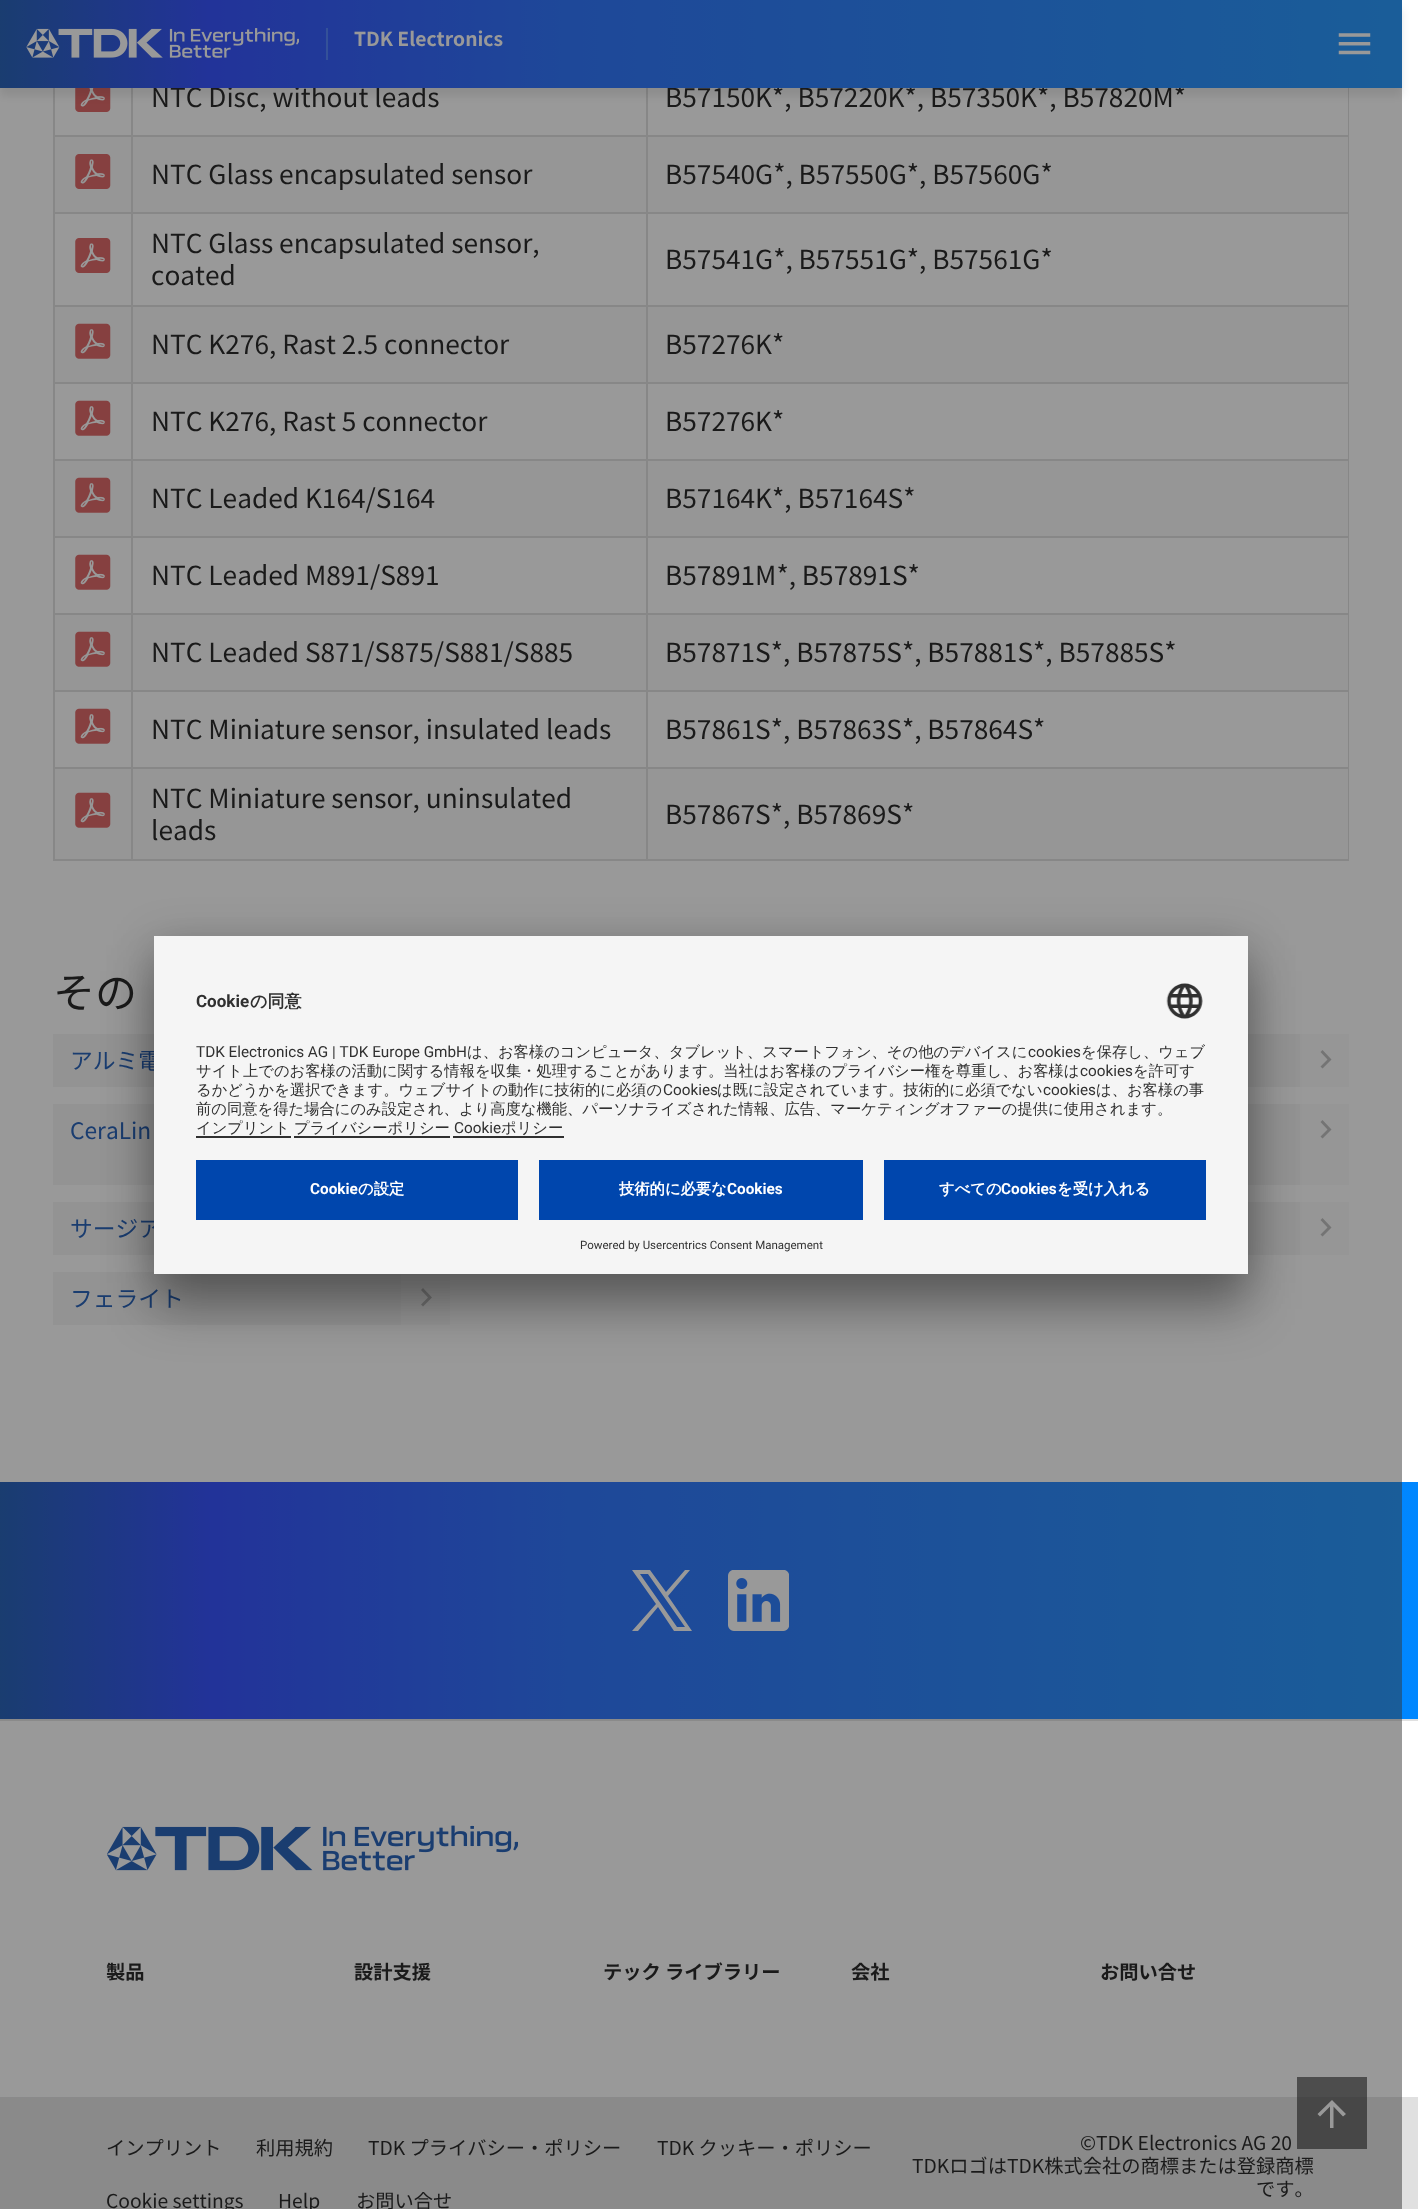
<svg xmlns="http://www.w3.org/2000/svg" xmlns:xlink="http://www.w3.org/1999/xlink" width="1418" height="2209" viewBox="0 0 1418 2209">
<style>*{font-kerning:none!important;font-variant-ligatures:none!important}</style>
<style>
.cls-1{font:26.25px Noto Sans JP;fill:#000000}
.cls-2{font:bold 19.25px Noto Sans JP;fill:#ffffff}
.cls-3{font:42px Noto Sans JP;fill:#000000}
.cls-4{font:22.75px Noto Sans JP;fill:#0046ad}
.cls-5{font:bold 19.25px Noto Sans JP;fill:#000000}
.cls-6{font:19.25px Noto Sans JP;fill:#000000}
.cls-7{font:bold 17px WenQuanYi Zen Hei;fill:#303030}
.cls-8{font:bold 17px Roboto;fill:#303030}
.cls-9{font:500 15.3px WenQuanYi Zen Hei;fill:#303030}
.cls-10{font:15.3px Roboto;fill:#303030}
.cls-11{font:11.5px Roboto;fill:#303030}
.cls-12{font:bold 15.3px WenQuanYi Zen Hei;fill:#ffffff}
.cls-13{font:bold 15.3px Roboto;fill:#ffffff}
</style>
<defs>
<linearGradient id="g1" gradientUnits="userSpaceOnUse" x1="0" y1="1600" x2="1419" y2="1600"><stop offset="0" stop-color="#0046ad"/><stop offset="0.15" stop-color="#1132ff"/><stop offset="0.4" stop-color="#095cff"/><stop offset="1" stop-color="#0087ff"/></linearGradient>
<linearGradient id="g2" gradientUnits="userSpaceOnUse" x1="0" y1="44" x2="1402" y2="44"><stop offset="0" stop-color="#0046ad"/><stop offset="0.15" stop-color="#1132ff"/><stop offset="0.4" stop-color="#095cff"/><stop offset="1" stop-color="#0087ff"/></linearGradient>
</defs>
<rect width="100%" height="100%" fill="#ffffff"/>
<image xlink:href="image2.png" x="75" y="88" width="36" height="24"/>
<rect fill="#dadada" x="646" y="135" width="703" height="2"/>
<rect fill="#f9f9f9" x="55" y="137" width="1293" height="75"/>
<rect fill="#dadada" x="646" y="212" width="703" height="2"/>
<rect fill="#dadada" x="646" y="305" width="703" height="2"/>
<rect fill="#f9f9f9" x="55" y="307" width="1293" height="75"/>
<rect fill="#dadada" x="646" y="382" width="703" height="2"/>
<rect fill="#dadada" x="646" y="459" width="703" height="2"/>
<rect fill="#f9f9f9" x="55" y="461" width="1293" height="75"/>
<rect fill="#dadada" x="646" y="536" width="703" height="2"/>
<rect fill="#dadada" x="646" y="613" width="703" height="2"/>
<rect fill="#f9f9f9" x="55" y="615" width="1293" height="75"/>
<rect fill="#dadada" x="646" y="690" width="703" height="2"/>
<rect fill="#dadada" x="646" y="767" width="703" height="2"/>
<rect fill="#f9f9f9" x="55" y="769" width="1293" height="90"/>
<rect fill="#dadada" x="1348" y="767" width="1" height="94"/>
<rect fill="#dadada" x="646" y="859" width="703" height="2"/>
<rect fill="#dadada" x="646" y="767" width="2" height="94"/>
<rect fill="#dadada" x="131" y="767" width="517" height="2"/>
<rect fill="#dadada" x="646" y="690" width="2" height="78"/>
<rect fill="#dadada" x="131" y="690" width="517" height="2"/>
<rect fill="#dadada" x="646" y="613" width="2" height="78"/>
<rect fill="#dadada" x="131" y="613" width="517" height="2"/>
<rect fill="#dadada" x="646" y="536" width="2" height="78"/>
<rect fill="#dadada" x="131" y="536" width="517" height="2"/>
<rect fill="#dadada" x="646" y="459" width="2" height="78"/>
<rect fill="#dadada" x="131" y="459" width="517" height="2"/>
<rect fill="#dadada" x="646" y="382" width="2" height="78"/>
<rect fill="#dadada" x="131" y="382" width="517" height="2"/>
<rect fill="#dadada" x="646" y="305" width="2" height="78"/>
<rect fill="#dadada" x="131" y="305" width="517" height="2"/>
<rect fill="#dadada" x="646" y="212" width="2" height="94"/>
<rect fill="#dadada" x="131" y="212" width="517" height="2"/>
<rect fill="#dadada" x="646" y="135" width="2" height="79"/>
<rect fill="#dadada" x="131" y="135" width="517" height="2"/>
<rect fill="#dadada" x="131" y="859" width="517" height="2"/>
<rect fill="#dadada" x="131" y="767" width="2" height="94"/>
<rect fill="#dadada" x="53" y="767" width="80" height="2"/>
<rect fill="#dadada" x="131" y="690" width="2" height="78"/>
<rect fill="#dadada" x="53" y="690" width="80" height="2"/>
<rect fill="#dadada" x="131" y="613" width="2" height="78"/>
<rect fill="#dadada" x="53" y="613" width="80" height="2"/>
<rect fill="#dadada" x="131" y="536" width="2" height="78"/>
<rect fill="#dadada" x="53" y="536" width="80" height="2"/>
<rect fill="#dadada" x="131" y="459" width="2" height="78"/>
<rect fill="#dadada" x="53" y="459" width="80" height="2"/>
<rect fill="#dadada" x="131" y="382" width="2" height="78"/>
<rect fill="#dadada" x="53" y="382" width="80" height="2"/>
<rect fill="#dadada" x="131" y="305" width="2" height="78"/>
<rect fill="#dadada" x="53" y="305" width="80" height="2"/>
<rect fill="#dadada" x="131" y="212" width="2" height="94"/>
<rect fill="#dadada" x="53" y="212" width="80" height="2"/>
<rect fill="#dadada" x="131" y="135" width="2" height="79"/>
<rect fill="#dadada" x="53" y="135" width="80" height="2"/>
<rect fill="#dadada" x="131" y="88" width="2" height="49"/>
<rect fill="#dadada" x="646" y="88" width="2" height="49"/>
<rect fill="#dadada" x="53" y="859" width="80" height="2"/>
<rect fill="#dadada" x="53" y="767" width="2" height="94"/>
<rect fill="#dadada" x="53" y="690" width="2" height="78"/>
<rect fill="#dadada" x="53" y="613" width="2" height="78"/>
<rect fill="#dadada" x="53" y="536" width="2" height="78"/>
<rect fill="#dadada" x="53" y="459" width="2" height="78"/>
<rect fill="#dadada" x="53" y="382" width="2" height="78"/>
<rect fill="#dadada" x="53" y="305" width="2" height="78"/>
<rect fill="#dadada" x="53" y="212" width="2" height="94"/>
<rect fill="#dadada" x="53" y="88" width="2" height="126"/>
<rect fill="#dadada" x="1348" y="690" width="1" height="78"/>
<rect fill="#dadada" x="1348" y="613" width="1" height="78"/>
<rect fill="#dadada" x="1348" y="536" width="1" height="78"/>
<rect fill="#dadada" x="1348" y="459" width="1" height="78"/>
<rect fill="#dadada" x="1348" y="382" width="1" height="78"/>
<rect fill="#dadada" x="1348" y="305" width="1" height="78"/>
<rect fill="#dadada" x="1348" y="212" width="1" height="94"/>
<rect fill="#dadada" x="1348" y="88" width="1" height="126"/>
<rect fill="#000000" fill-opacity="0.1" filter="blur(4.5px)" x="0" y="9" width="1402" height="87"/>
<image xlink:href="image3.png" x="75" y="154" width="36" height="35"/>
<image xlink:href="image4.png" x="75" y="238" width="36" height="35"/>
<image xlink:href="image5.png" x="75" y="323" width="36" height="36"/>
<image xlink:href="image6.png" x="75" y="400" width="36" height="36"/>
<image xlink:href="image5.png" x="75" y="477" width="36" height="36"/>
<image xlink:href="image6.png" x="75" y="554" width="36" height="36"/>
<image xlink:href="image5.png" x="75" y="631" width="36" height="36"/>
<image xlink:href="image6.png" x="75" y="708" width="36" height="36"/>
<image xlink:href="image5.png" x="75" y="792" width="36" height="36"/>
<rect fill="#f3f3f3" x="53" y="1034" width="101" height="53"/>
<rect fill="#f9f9f9" x="1300" y="1034" width="49" height="53"/>
<rect fill="#f3f3f3" x="1248" y="1034" width="52" height="53"/>
<path fill="#b5b5b5" d="M1320.5 1066.5L1327.5 1059.5L1320.5 1052L1322.5 1050L1331.5 1059.5L1322.5 1068.5Z"/>
<rect fill="#f3f3f3" x="53" y="1104" width="101" height="81"/>
<rect fill="#f9f9f9" x="1300" y="1104" width="49" height="81"/>
<rect fill="#f3f3f3" x="1248" y="1104" width="52" height="81"/>
<path fill="#b5b5b5" d="M1320.5 1136.5L1327.5 1129.5L1320.5 1122L1322.5 1120L1331.5 1129.5L1322.5 1138.5Z"/>
<rect fill="#f3f3f3" x="53" y="1202" width="101" height="53"/>
<rect fill="#f9f9f9" x="1300" y="1202" width="49" height="53"/>
<rect fill="#f3f3f3" x="1248" y="1202" width="52" height="53"/>
<path fill="#b5b5b5" d="M1320.5 1234.5L1327.5 1227.5L1320.5 1220L1322.5 1218L1331.5 1227.5L1322.5 1236.5Z"/>
<rect fill="#f9f9f9" x="401" y="1274" width="49" height="51"/>
<rect fill="#f3f3f3" x="53" y="1272" width="348" height="53"/>
<path fill="#b5b5b5" d="M421 1304.5L428 1297.5L421 1290L423 1288L432 1297.5L423 1306.5Z"/>
<rect fill="url(#g1)" x="0" y="1482" width="1418" height="237"/>
<path fill="#ffffff" d="M668 1596L690 1570H685L666 1592L650 1570H632L656 1604L632 1631H638L658 1607L674 1631H692ZM661 1604L640 1574H648L685 1627H677Z"/>
<image xlink:href="image8.png" x="728" y="1570" width="61" height="61"/>
<rect fill="#e0e0e0" x="0" y="1719" width="1418" height="2"/>
<image xlink:href="image9.png" x="107" y="1825" width="411" height="46"/>
<rect fill="#e0e0e0" x="0" y="2097" width="1418" height="112"/>
<rect fill="#000000" fill-opacity="0.6" x="1297" y="2077" width="70" height="72"/>
<path fill="#ffffff" d="M1317.5 2114L1332 2100L1346 2114L1343 2116.5L1333.5 2106.5V2128H1330V2106.5L1320 2116.5Z"/>
<text class="cls-1" x="151" y="107">NTC Disc, without leads</text>
<text class="cls-1" x="665" y="107">B57150K*, B57220K*, B57350K*, B57820M*</text>
<rect fill="url(#g2)" x="0" y="0" width="1402" height="88"/>
<image xlink:href="image1.png" x="1338" y="33" width="33" height="22"/>
<image xlink:href="image0.png" x="26" y="28" width="273" height="30"/>
<text class="cls-2" x="354" y="46">TDK Electronics</text>
<rect fill="#356eff" x="326" y="28" width="2" height="32"/>
<text class="cls-1" x="151" y="184">NTC Glass encapsulated sensor</text>
<text class="cls-1" x="665" y="184">B57540G*, B57550G*, B57560G*</text>
<text class="cls-1"><tspan x="151" y="253">NTC Glass encapsulated sensor,</tspan><tspan x="151" y="285">coated</tspan></text>
<text class="cls-1" x="665" y="269">B57541G*, B57551G*, B57561G*</text>
<text class="cls-1" x="151" y="354">NTC K276, Rast 2.5 connector</text>
<text class="cls-1" x="665" y="354">B57276K*</text>
<text class="cls-1" x="151" y="431">NTC K276, Rast 5 connector</text>
<text class="cls-1" x="665" y="431">B57276K*</text>
<text class="cls-1" x="151" y="508">NTC Leaded K164/S164</text>
<text class="cls-1" x="665" y="508">B57164K*, B57164S*</text>
<text class="cls-1" x="151" y="585">NTC Leaded M891/S891</text>
<text class="cls-1" x="665" y="585">B57891M*, B57891S*</text>
<text class="cls-1" x="151" y="662">NTC Leaded S871/S875/S881/S885</text>
<text class="cls-1" x="665" y="662">B57871S*, B57875S*, B57881S*, B57885S*</text>
<text class="cls-1" x="151" y="739">NTC Miniature sensor, insulated leads</text>
<text class="cls-1" x="665" y="739">B57861S*, B57863S*, B57864S*</text>
<text class="cls-1"><tspan x="151" y="808">NTC Miniature sensor, uninsulated</tspan><tspan x="151" y="840">leads</tspan></text>
<text class="cls-1" x="665" y="824">B57867S*, B57869S*</text>
<text class="cls-3" x="53" y="1008">その</text>
<text class="cls-4" x="70" y="1069">アルミ電</text>
<text class="cls-4" x="70" y="1139">CeraLin</text>
<text class="cls-4" x="70" y="1237">サージア</text>
<text class="cls-4" x="70" y="1307">フェライト</text>
<text class="cls-5" x="106" y="1979">製品</text>
<text class="cls-5" x="354" y="1979">設計支援</text>
<text class="cls-5" x="603" y="1979">テック ライブラリー</text>
<text class="cls-5" x="851" y="1979">会社</text>
<text class="cls-5" x="1100" y="1979">お問い合せ</text>
<text class="cls-6" x="106" y="2155">インプリント</text>
<text class="cls-6" x="256" y="2155">利用規約</text>
<text class="cls-6" x="368" y="2155">TDK プライバシー・ポリシー</text>
<text class="cls-6" x="657" y="2155">TDK クッキー・ポリシー</text>
<text class="cls-6" x="106" y="2208">Cookie settings</text>
<text class="cls-6" x="278" y="2208">Help</text>
<text class="cls-6" x="356" y="2208">お問い合せ</text>
<text class="cls-6" x="1080" y="2150">©TDK Electronics AG 20</text>
<text class="cls-6" x="912" y="2173">TDKロゴはTDK株式会社の商標または登録商標</text>
<text class="cls-6" x="1256" y="2196">です。</text>
<rect fill="#333333" fill-opacity="0.5" x="0" y="0" width="1402" height="2209"/>
<rect fill="#000000" fill-opacity="0.22" filter="blur(23px)" x="154" y="945" width="1094" height="338"/>
<rect fill="#000000" fill-opacity="0.3" filter="blur(24.5px)" x="154" y="971" width="1094" height="338"/>
<rect fill="#f5f5f5" x="154" y="936" width="1094" height="338"/>
<image xlink:href="image7.png" x="1166" y="983" width="37" height="36"/>
<text class="cls-7" x="250" y="1007">の同意</text>
<text class="cls-8" x="196" y="1007">Cookie</text>
<text class="cls-9" x="501" y="1133">ポリシー</text>
<text class="cls-10" x="454" y="1133">Cookie</text>
<rect fill="#303030" x="453" y="1136" width="111" height="2"/>
<text class="cls-9" x="294" y="1133">プライバシーポリシー</text>
<rect fill="#303030" x="294" y="1136" width="156" height="2"/>
<text class="cls-9" x="196" y="1133">インプリント</text>
<rect fill="#303030" x="196" y="1136" width="95" height="2"/>
<text class="cls-9" x="196" y="1114">前の同意を得た場合にのみ設定され、より高度な機能、パーソナライズされた情報、広告、マーケティングオファーの提供に使用されます。</text>
<text class="cls-9" x="1096" y="1095">は、お客様の事</text>
<text class="cls-10" x="1043" y="1095">cookies</text>
<text class="cls-9" x="717" y="1095">は既に設定されています。技術的に必須でない</text>
<text class="cls-10" x="663" y="1095">Cookies</text>
<text class="cls-9" x="196" y="1095">るかどうかを選択できます。ウェブサイトの動作に技術的に必須の</text>
<text class="cls-9" x="1133" y="1076">を許可す</text>
<text class="cls-10" x="1080" y="1076">cookies</text>
<text class="cls-9" x="196" y="1076">サイト上でのお客様の活動に関する情報を収集・処理することがあります。当社はお客様のプライバシー権を尊重し、お客様は</text>
<text class="cls-9" x="1081" y="1057">を保存し、ウェブ</text>
<text class="cls-10" x="1028" y="1057">cookies</text>
<text class="cls-9" x="467" y="1057">は、お客様のコンピュータ、タブレット、スマートフォン、その他のデバイスに</text>
<text class="cls-10" x="196" y="1057">TDK Electronics AG | TDK Europe GmbH</text>
<text class="cls-11" x="580" y="1249">Powered by Usercentrics Consent Management</text>
<rect fill="#0046ad" x="884" y="1160" width="322" height="60"/>
<text class="cls-12" x="1057" y="1194">を受け入れる</text>
<text class="cls-13" x="1001" y="1194">Cookies</text>
<text class="cls-12" x="939" y="1194">すべての</text>
<rect fill="#0046ad" x="539" y="1160" width="324" height="60"/>
<text class="cls-13" x="727" y="1194">Cookies</text>
<text class="cls-12" x="619" y="1194">技術的に必要な</text>
<rect fill="#0046ad" x="196" y="1160" width="322" height="60"/>
<text class="cls-12" x="358" y="1194">の設定</text>
<text class="cls-13" x="310" y="1194">Cookie</text>
</svg>
